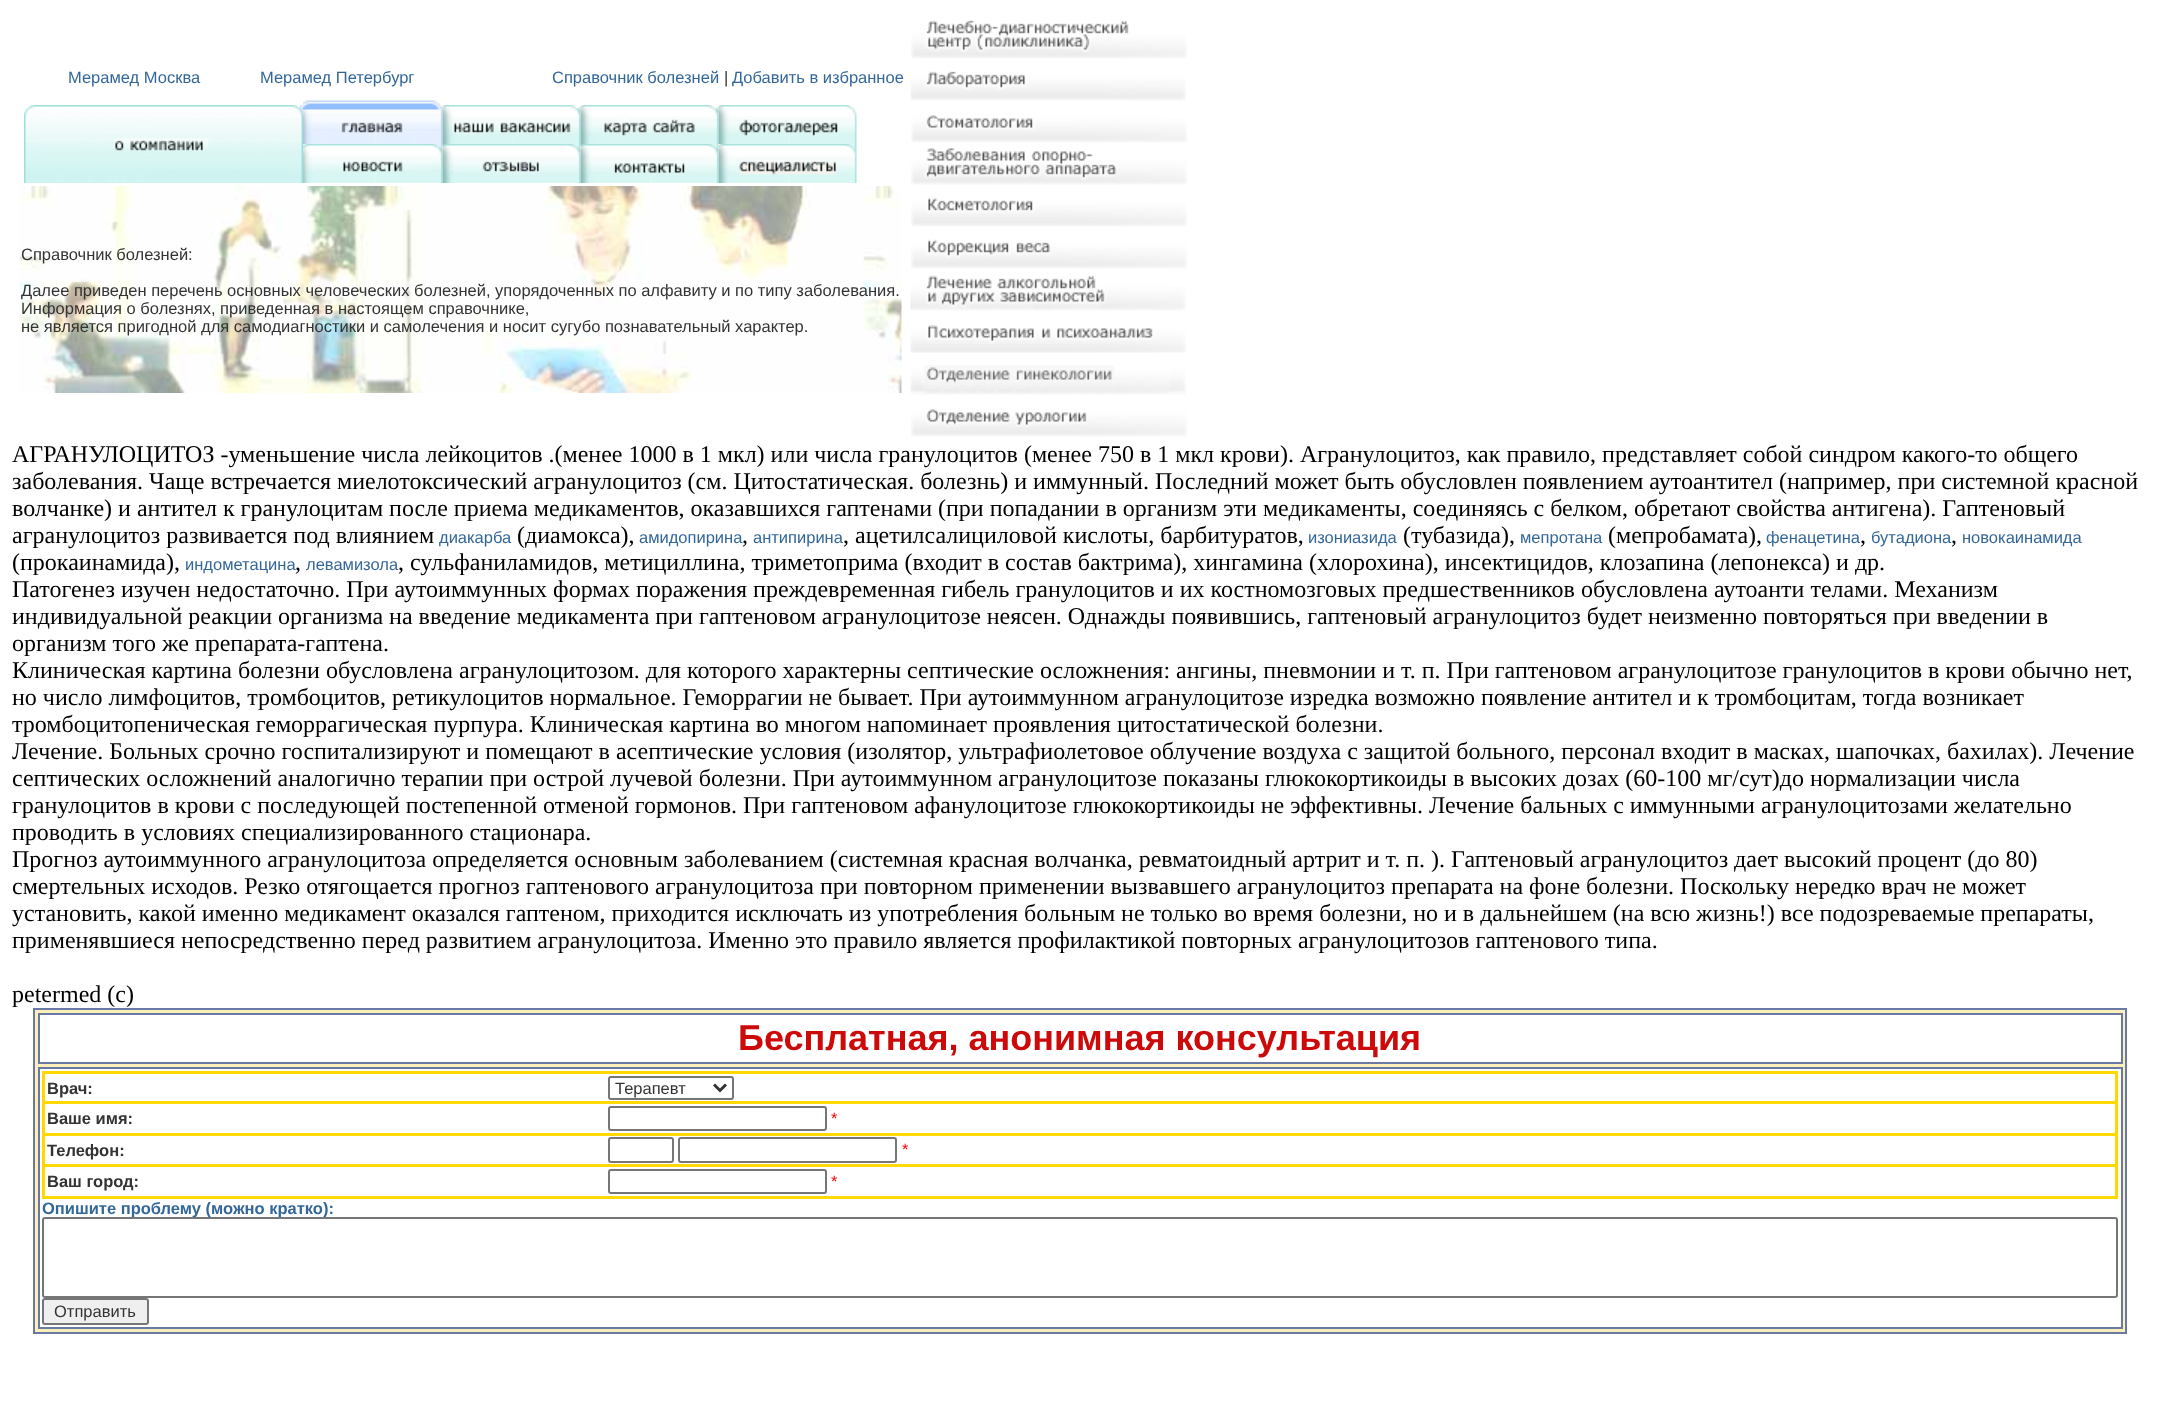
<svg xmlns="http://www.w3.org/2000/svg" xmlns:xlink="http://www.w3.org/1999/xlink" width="2160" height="1414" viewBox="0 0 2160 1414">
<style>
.cls-1{font:16.5px Liberation Sans;fill:#336699}
.cls-2{font:16.5px Liberation Sans;fill:#333333}
.cls-3{font:24px Liberation Serif;fill:#000000}
.cls-4{font:bold 36px Liberation Sans;fill:#cd090a}
.cls-5{font:bold 16.5px Liberation Sans;fill:#333333}
.cls-6{font:16.5px Liberation Sans;fill:#ff0000}
.cls-7{font:bold 16.5px Liberation Sans;fill:#336699}
</style>
<rect width="100%" height="100%" fill="#ffffff"/>
<image xlink:href="image0.png" x="24" y="105" width="279" height="78"/>
<image xlink:href="image1.png" x="303" y="100" width="140" height="44"/>
<image xlink:href="image2.png" x="303" y="144" width="140" height="39"/>
<image xlink:href="image3.png" x="442" y="105" width="139" height="39"/>
<image xlink:href="image4.png" x="442" y="144" width="139" height="39"/>
<image xlink:href="image5.png" x="580" y="105" width="139" height="39"/>
<image xlink:href="image6.png" x="580" y="144" width="139" height="39"/>
<image xlink:href="image7.png" x="718" y="105" width="139" height="39"/>
<image xlink:href="image8.png" x="718" y="144" width="139" height="39"/>
<image xlink:href="image9.png" x="19" y="186" width="883" height="207"/>
<image xlink:href="image10.png" x="911" y="20" width="276" height="39"/>
<image xlink:href="image11.png" x="910" y="71" width="276" height="30"/>
<image xlink:href="image12.png" x="911" y="115" width="276" height="28"/>
<image xlink:href="image13.png" x="911" y="148" width="276" height="37"/>
<image xlink:href="image14.png" x="911" y="197" width="276" height="30"/>
<image xlink:href="image15.png" x="911" y="239" width="276" height="30"/>
<image xlink:href="image16.png" x="910" y="275" width="276" height="36"/>
<image xlink:href="image17.png" x="910" y="325" width="276" height="28"/>
<image xlink:href="image18.png" x="910" y="365" width="276" height="30"/>
<image xlink:href="image19.png" x="911" y="409" width="276" height="28"/>
<rect fill="#fdefba" stroke="#697aa6" stroke-width="2" x="34" y="1009" width="2092" height="324"/>
<rect fill="#ffffff" stroke="#697aa6" stroke-width="2" x="39" y="1014" width="2083" height="49"/>
<rect fill="#ffffff" stroke="#697aa6" stroke-width="2" x="39" y="1068" width="2083" height="260"/>
<rect fill="#ffd800" x="42" y="1071" width="2076" height="128"/>
<rect fill="#ffffff" x="45" y="1074" width="2070" height="27"/>
<rect fill="none" stroke="#767676" stroke-width="2" x="609" y="1077" width="124" height="22" rx="2"/>
<path fill="none" stroke="#333333" stroke-width="3" d="M714 1084.5L720 1090.5L726 1084.5"/>
<rect fill="#ffffff" x="45" y="1104" width="2070" height="29"/>
<rect fill="none" stroke="#767676" stroke-width="2" x="609" y="1107" width="217" height="23" rx="2"/>
<rect fill="#ffffff" x="45" y="1136" width="2070" height="28"/>
<rect fill="none" stroke="#767676" stroke-width="2" x="609" y="1138" width="64" height="24" rx="2"/>
<rect fill="none" stroke="#767676" stroke-width="2" x="679" y="1138" width="217" height="24" rx="2"/>
<rect fill="#ffffff" x="45" y="1167" width="2070" height="29"/>
<rect fill="none" stroke="#767676" stroke-width="2" x="609" y="1170" width="217" height="23" rx="2"/>
<rect fill="#efefef" stroke="#767676" stroke-width="2" x="43" y="1299" width="105" height="25" rx="2"/>
<text class="cls-1" x="68" y="83">Мерамед Москва</text>
<text class="cls-1" x="260" y="83">Мерамед Петербург</text>
<text class="cls-1" x="552" y="83">Справочник болезней</text>
<text class="cls-2" x="724" y="83">|</text>
<text class="cls-1" x="732" y="83">Добавить в избранное</text>
<text class="cls-2" x="21" y="260">Справочник болезней:</text>
<text class="cls-2"><tspan x="21" y="296">Далее приведен перечень основных человеческих болезней, упорядоченных по алфавиту и по типу заболевания.</tspan><tspan x="21" y="314">Информация о болезнях, приведенная в настоящем справочнике,</tspan><tspan x="21" y="332">не является пригодной для самодиагностики и самолечения и носит сугубо познавательный характер.</tspan></text>
<text class="cls-3"><tspan x="12" y="462">АГРАНУЛОЦИТОЗ -уменьшение числа лейкоцитов .(менее 1000 в 1 мкл) или числа гранулоцитов (менее 750 в 1 мкл крови). Агранулоцитоз, как правило, представляет собой синдром какого-то общего</tspan><tspan x="12" y="489">заболевания. Чаще встречается миелотоксический агранулоцитоз (см. Цитостатическая. болезнь) и иммунный. Последний может быть обусловлен появлением аутоантител (например, при системной красной</tspan><tspan x="12" y="516">волчанке) и антител к гранулоцитам после приема медикаментов, оказавшихся гаптенами (при попадании в организм эти медикаменты, соединяясь с белком, обретают свойства антигена). Гаптеновый</tspan><tspan x="12" y="543">агранулоцитоз развивается под влиянием</tspan></text>
<text class="cls-1" x="439" y="543">диакарба</text>
<text class="cls-3" x="517" y="543">(диамокса),</text>
<text class="cls-1" x="639" y="543">амидопирина</text>
<text class="cls-3" x="742" y="543">,</text>
<text class="cls-1" x="753" y="543">антипирина</text>
<text class="cls-3" x="843" y="543">, ацетилсалициловой кислоты, барбитуратов,</text>
<text class="cls-1" x="1308" y="543">изониазида</text>
<text class="cls-3" x="1403" y="543">(тубазида),</text>
<text class="cls-1" x="1520" y="543">мепротана</text>
<text class="cls-3" x="1608" y="543">(мепробамата),</text>
<text class="cls-1" x="1766" y="543">фенацетина</text>
<text class="cls-3" x="1860" y="543">,</text>
<text class="cls-1" x="1871" y="543">бутадиона</text>
<text class="cls-3" x="1951" y="543">,</text>
<text class="cls-1" x="1962" y="543">новокаинамида</text>
<text class="cls-3" x="12" y="570">(прокаинамида),</text>
<text class="cls-1" x="185" y="570">индометацина</text>
<text class="cls-3" x="295" y="570">,</text>
<text class="cls-1" x="306" y="570">левамизола</text>
<text class="cls-3" x="398" y="570">, сульфаниламидов, метициллина, триметоприма (входит в состав бактрима), хингамина (хлорохина), инсектицидов, клозапина (лепонекса) и др.</text>
<text class="cls-3"><tspan x="12" y="597">Патогенез изучен недостаточно. При аутоиммунных формах поражения преждевременная гибель гранулоцитов и их костномозговых предшественников обусловлена аутоанти телами. Механизм</tspan><tspan x="12" y="624">индивидуальной реакции организма на введение медикамента при гаптеновом агранулоцитозе неясен. Однажды появившись, гаптеновый агранулоцитоз будет неизменно повторяться при введении в</tspan><tspan x="12" y="651">организм того же препарата-гаптена.</tspan><tspan x="12" y="678">Клиническая картина болезни обусловлена агранулоцитозом. для которого характерны септические осложнения: ангины, пневмонии и т. п. При гаптеновом агранулоцитозе гранулоцитов в крови обычно нет,</tspan><tspan x="12" y="705">но число лимфоцитов, тромбоцитов, ретикулоцитов нормальное. Геморрагии не бывает. При аутоиммунном агранулоцитозе изредка возможно появление антител и к тромбоцитам, тогда возникает</tspan><tspan x="12" y="732">тромбоцитопеническая геморрагическая пурпура. Клиническая картина во многом напоминает проявления цитостатической болезни.</tspan><tspan x="12" y="759">Лечение. Больных срочно госпитализируют и помещают в асептические условия (изолятор, ультрафиолетовое облучение воздуха с защитой больного, персонал входит в масках, шапочках, бахилах). Лечение</tspan><tspan x="12" y="786">септических осложнений аналогично терапии при острой лучевой болезни. При аутоиммунном агранулоцитозе показаны глюкокортикоиды в высоких дозах (60-100 мг/сут)до нормализации числа</tspan><tspan x="12" y="813">гранулоцитов в крови с последующей постепенной отменой гормонов. При гаптеновом афанулоцитозе глюкокортикоиды не эффективны. Лечение бальных с иммунными агранулоцитозами желательно</tspan><tspan x="12" y="840">проводить в условиях специализированного стационара.</tspan><tspan x="12" y="867">Прогноз аутоиммунного агранулоцитоза определяется основным заболеванием (системная красная волчанка, ревматоидный артрит и т. п. ). Гаптеновый агранулоцитоз дает высокий процент (до 80)</tspan><tspan x="12" y="894">смертельных исходов. Резко отягощается прогноз гаптенового агранулоцитоза при повторном применении вызвавшего агранулоцитоз препарата на фоне болезни. Поскольку нередко врач не может</tspan><tspan x="12" y="921">установить, какой именно медикамент оказался гаптеном, приходится исключать из употребления больным не только во время болезни, но и в дальнейшем (на всю жизнь!) все подозреваемые препараты,</tspan><tspan x="12" y="948">применявшиеся непосредственно перед развитием агранулоцитоза. Именно это правило является профилактикой повторных агранулоцитозов гаптенового типа.</tspan></text>
<text class="cls-3" x="12" y="1002">petermed (c)</text>
<text class="cls-4" x="738" y="1050">Бесплатная, анонимная консультация</text>
<text class="cls-5" x="47" y="1094">Врач:</text>
<text class="cls-2" x="615" y="1094">Терапевт</text>
<text class="cls-5" x="47" y="1124">Ваше имя:</text>
<text class="cls-6" x="831" y="1124">*</text>
<text class="cls-5" x="47" y="1156">Телефон:</text>
<text class="cls-6" x="902" y="1155">*</text>
<text class="cls-5" x="47" y="1187">Ваш город:</text>
<text class="cls-6" x="831" y="1187">*</text>
<text class="cls-7" x="42" y="1214">Опишите проблему (можно кратко):</text>
<rect fill="#ffffff" stroke="#767676" stroke-width="2" x="43" y="1218" width="2074" height="79" rx="2"/>
<text class="cls-2" x="54" y="1317">Отправить</text>
</svg>
